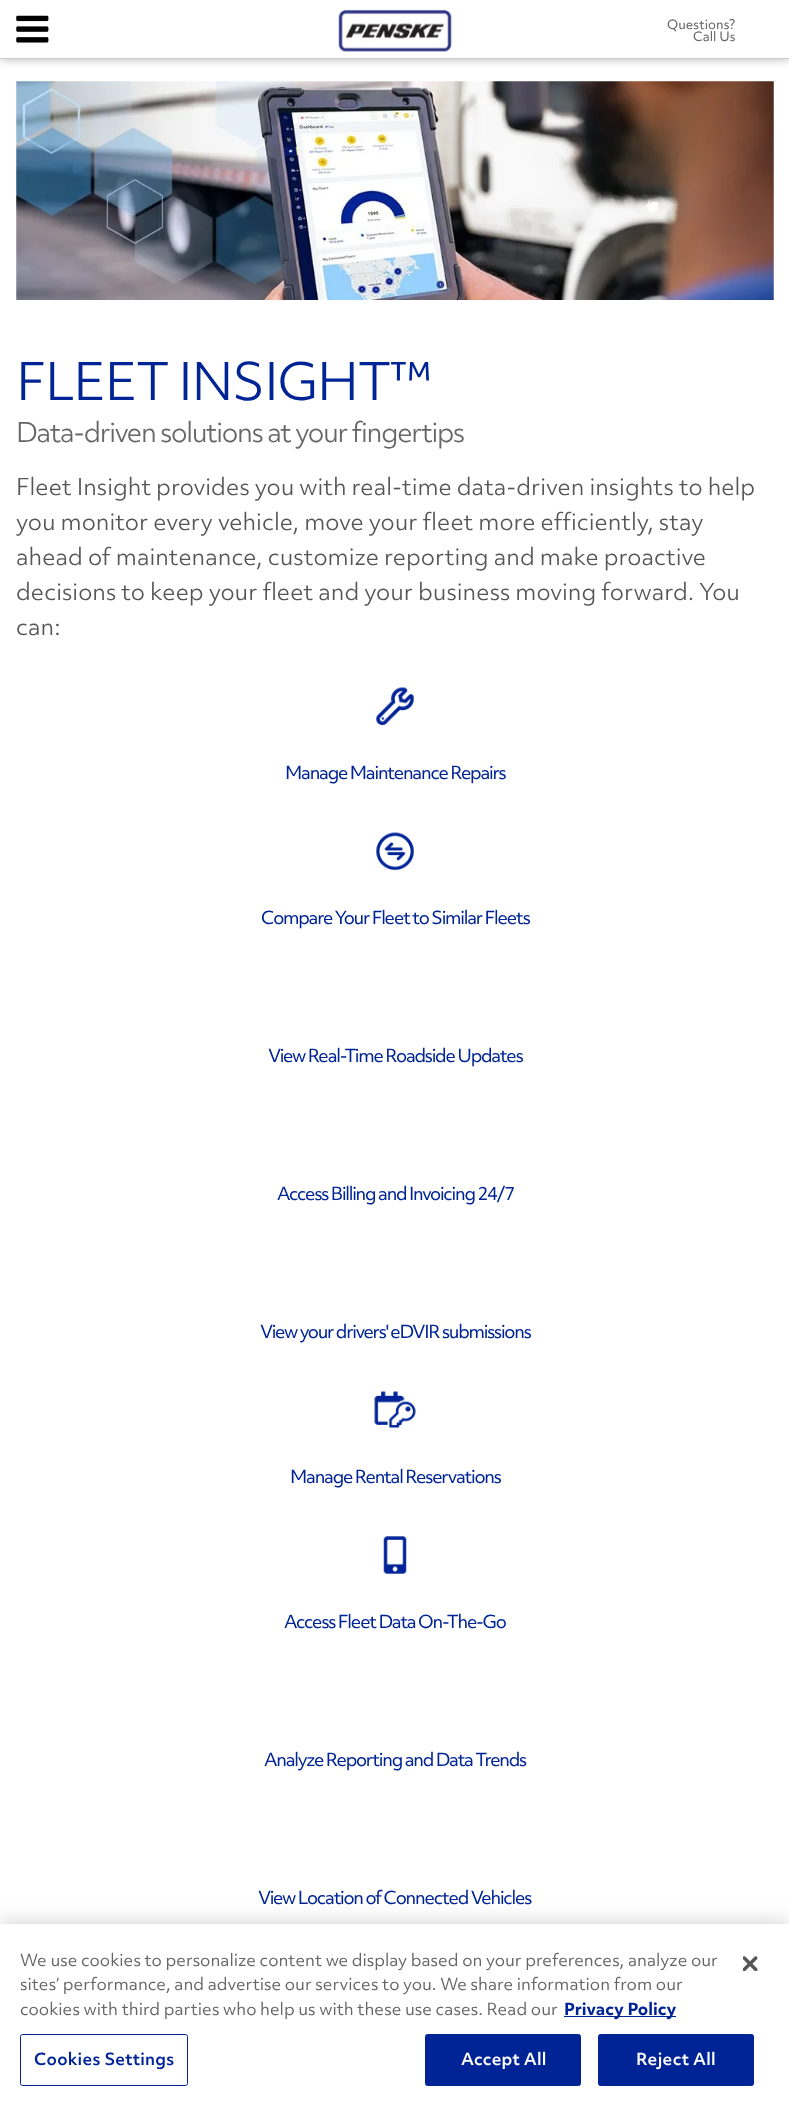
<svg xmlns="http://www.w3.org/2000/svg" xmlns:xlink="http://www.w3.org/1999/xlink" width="789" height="2112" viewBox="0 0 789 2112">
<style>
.cls-1{font:500 12.5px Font;fill:#666666}
.cls-2{font:300 50px Font;letter-spacing:-1.25px;fill:#002496}
.cls-3{font:300 26.25px Font;letter-spacing:-1.25px;fill:#666666}
.cls-4{font:300 22.5px Font;fill:#555555}
.cls-5{font:500 17.5px Font;letter-spacing:-1.25px;fill:#002496}
.cls-6{font:16.25px Font;fill:#666666}
.cls-7{font:bold 16.25px Font;fill:#002496}
.cls-8{font:600 16.25px Font;letter-spacing:0.2px;fill:#002496}
.cls-9{font:600 16.25px Font;letter-spacing:0.2px;fill:#ffffff}
</style>
<rect width="100%" height="100%" fill="#ffffff"/>
<rect fill="#000000" fill-opacity="0.3" filter="blur(5px)" x="0" y="0" width="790" height="59"/>
<rect fill="#ffffff" x="0" y="0" width="789" height="58"/>
<rect fill="#cccccc" x="0" y="58" width="789" height="1"/>
<image xlink:href="image0.png" x="16" y="15" width="33" height="28"/>
<image xlink:href="image1.png" x="338" y="10" width="114" height="42"/>
<image xlink:href="image2.png" x="16" y="81" width="758" height="219"/>
<image xlink:href="image3.png" x="376" y="687" width="38" height="38"/>
<image xlink:href="image4.png" x="376" y="832" width="38" height="38"/>
<image xlink:href="image5.png" x="374" y="1391" width="42" height="37"/>
<image xlink:href="image6.png" x="383" y="1536" width="24" height="38"/>
<rect fill="#000000" fill-opacity="0.2" filter="blur(11px)" x="0" y="1924" width="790" height="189"/>
<rect fill="#ffffff" x="0" y="1924" width="789" height="188"/>
<rect fill="#002496" x="564" y="2016" width="112" height="1"/>
<rect fill="none" stroke="#002496" x="20.5" y="2034.5" width="167" height="51" rx="2"/>
<rect fill="#002496" stroke="#002496" x="425.5" y="2034.5" width="155" height="51" rx="2"/>
<rect fill="#002496" stroke="#002496" x="598.5" y="2034.5" width="155" height="51" rx="2"/>
<image xlink:href="image7.png" x="743" y="1956" width="15" height="15"/>
<text class="cls-1" x="667" y="29">Questions?</text>
<text class="cls-1" x="693" y="41">Call Us</text>
<text class="cls-2" x="16" y="400">FLEET INSIGHT™</text>
<text class="cls-3" x="16" y="442">Data-driven solutions at your fingertips</text>
<text class="cls-4"><tspan x="16" y="495">Fleet Insight provides you with real-time data-driven insights to help</tspan><tspan x="16" y="530">you monitor every vehicle, move your fleet more efficiently, stay</tspan><tspan x="16" y="565">ahead of maintenance, customize reporting and make proactive</tspan><tspan x="16" y="600">decisions to keep your fleet and your business moving forward. You</tspan><tspan x="16" y="635">can:</tspan></text>
<text class="cls-5" x="285" y="779">Manage Maintenance Repairs</text>
<text class="cls-5" x="261" y="924">Compare Your Fleet to Similar Fleets</text>
<text class="cls-5" x="268" y="1062">View Real-Time Roadside Updates</text>
<text class="cls-5" x="277" y="1200">Access Billing and Invoicing 24/7</text>
<text class="cls-5" x="260" y="1338">View your drivers' eDVIR submissions</text>
<text class="cls-5" x="290" y="1483">Manage Rental Reservations</text>
<text class="cls-5" x="284" y="1628">Access Fleet Data On-The-Go</text>
<text class="cls-5" x="264" y="1766">Analyze Reporting and Data Trends</text>
<text class="cls-5" x="258" y="1904">View Location of Connected Vehicles</text>
<text class="cls-6"><tspan x="20" y="1966">We use cookies to personalize content we display based on your preferences, analyze our</tspan><tspan x="20" y="1990">sites’ performance, and advertise our services to you. We share information from our</tspan><tspan x="20" y="2015">cookies with third parties who help us with these use cases. Read our</tspan></text>
<text class="cls-7" x="564" y="2015">Privacy Policy</text>
<text class="cls-8" x="34" y="2065">Cookies Settings</text>
<text class="cls-9" x="461" y="2065">Accept All</text>
<text class="cls-9" x="636" y="2065">Reject All</text>
</svg>
